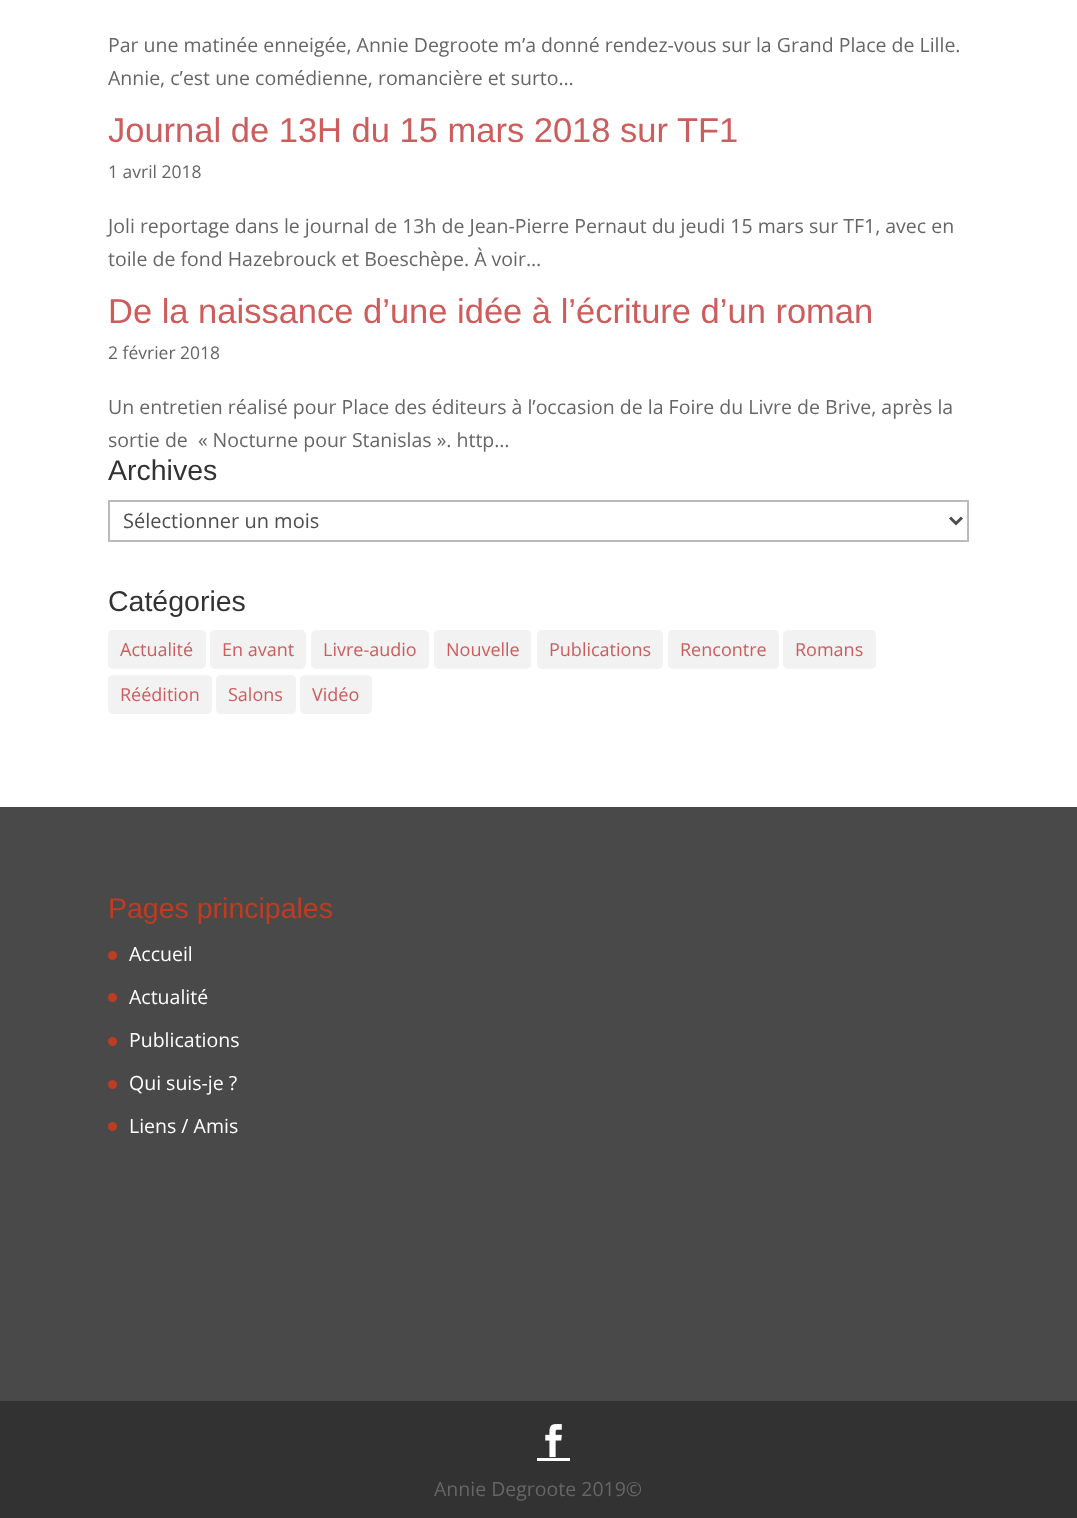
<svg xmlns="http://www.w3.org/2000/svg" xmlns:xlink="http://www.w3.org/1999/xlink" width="1077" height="1518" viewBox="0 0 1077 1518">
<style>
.cls-1{font:19.5px Open Sans;fill:#666666}
.cls-2{font:34.5px Liberation Sans;fill:#cd5c5c}
.cls-3{font:17.5px Open Sans;fill:#666666}
.cls-4{font:28.5px Liberation Sans;fill:#333333}
.cls-5{font:20px Open Sans;fill:#4e4e4e}
.cls-6{font:18px Open Sans;fill:#cd5c5c}
.cls-7{font:28.5px Liberation Sans;fill:#bc3d23}
.cls-8{font:19.5px Open Sans;fill:#ffffff}
</style>
<rect width="100%" height="100%" fill="#ffffff"/>
<rect fill="none" stroke="#bbbbbb" stroke-width="2" x="109" y="501" width="859" height="40"/>
<path fill="none" stroke="#4e4e4e" stroke-width="3" d="M950 517.5L956 523.5L962 517.5"/>
<rect fill="#f2f2f2" x="108" y="630" width="98" height="39" rx="5"/>
<rect fill="#f2f2f2" x="210" y="630" width="96" height="39" rx="5"/>
<rect fill="#f2f2f2" x="311" y="630" width="118" height="39" rx="5"/>
<rect fill="#f2f2f2" x="434" y="630" width="97" height="39" rx="5"/>
<rect fill="#f2f2f2" x="537" y="630" width="126" height="39" rx="5"/>
<rect fill="#f2f2f2" x="668" y="630" width="111" height="39" rx="5"/>
<rect fill="#f2f2f2" x="783" y="630" width="93" height="39" rx="5"/>
<rect fill="#f2f2f2" x="108" y="675" width="104" height="39" rx="5"/>
<rect fill="#f2f2f2" x="216" y="675" width="80" height="39" rx="5"/>
<rect fill="#f2f2f2" x="300" y="675" width="72" height="39" rx="5"/>
<rect fill="#494949" x="0" y="807" width="1077" height="594"/>
<circle fill="#bc3d23" cx="112.5" cy="955.5" r="4.5"/>
<circle fill="#bc3d23" cx="112.5" cy="997.5" r="4.5"/>
<circle fill="#bc3d23" cx="112.5" cy="1041.5" r="4.5"/>
<circle fill="#bc3d23" cx="112.5" cy="1084.5" r="4.5"/>
<circle fill="#bc3d23" cx="112.5" cy="1126.5" r="4.5"/>
<rect fill="#323232" x="0" y="1401" width="1077" height="117"/>
<image xlink:href="image0.png" x="545" y="1424" width="17" height="34"/>
<rect fill="#ffffff" x="537" y="1458" width="33" height="3"/>
<text class="cls-1"><tspan x="108" y="52">Par une matinée enneigée, Annie Degroote m’a donné rendez-vous sur la Grand Place de Lille.</tspan><tspan x="108" y="85">Annie, c’est une comédienne, romancière et surto…</tspan></text>
<text class="cls-2" x="108" y="142">Journal de 13H du 15 mars 2018 sur TF1</text>
<text class="cls-3" x="108" y="178">1 avril 2018</text>
<text class="cls-1"><tspan x="108" y="233">Joli reportage dans le journal de 13h de Jean-Pierre Pernaut du jeudi 15 mars sur TF1, avec en</tspan><tspan x="108" y="266">toile de fond Hazebrouck et Boeschèpe. À voir…</tspan></text>
<text class="cls-2" x="108" y="323">De la naissance d’une idée à l’écriture d’un roman</text>
<text class="cls-3" x="108" y="359">2 février 2018</text>
<text class="cls-1" xml:space="preserve"><tspan x="108" y="414">Un entretien réalisé pour Place des éditeurs à l’occasion de la Foire du Livre de Brive, après la</tspan><tspan x="108" y="447">sortie de  « Nocturne pour Stanislas ». http…</tspan></text>
<text class="cls-4" x="108" y="480">Archives</text>
<text class="cls-5" x="123" y="528">Sélectionner un mois</text>
<text class="cls-4" x="108" y="611">Catégories</text>
<text class="cls-6" x="120" y="656">Actualité</text>
<text class="cls-6" x="222" y="656">En avant</text>
<text class="cls-6" x="323" y="656">Livre-audio</text>
<text class="cls-6" x="446" y="656">Nouvelle</text>
<text class="cls-6" x="549" y="656">Publications</text>
<text class="cls-6" x="680" y="656">Rencontre</text>
<text class="cls-6" x="795" y="656">Romans</text>
<text class="cls-6" x="120" y="701">Réédition</text>
<text class="cls-6" x="228" y="701">Salons</text>
<text class="cls-6" x="312" y="701">Vidéo</text>
<text class="cls-7" x="108" y="918">Pages principales</text>
<text class="cls-8" x="129" y="961">Accueil</text>
<text class="cls-8" x="129" y="1004">Actualité</text>
<text class="cls-8" x="129" y="1047">Publications</text>
<text class="cls-8" x="129" y="1090">Qui suis-je ?</text>
<text class="cls-8" x="129" y="1133">Liens / Amis</text>
<text class="cls-1" x="434" y="1496">Annie Degroote 2019©</text>
</svg>
